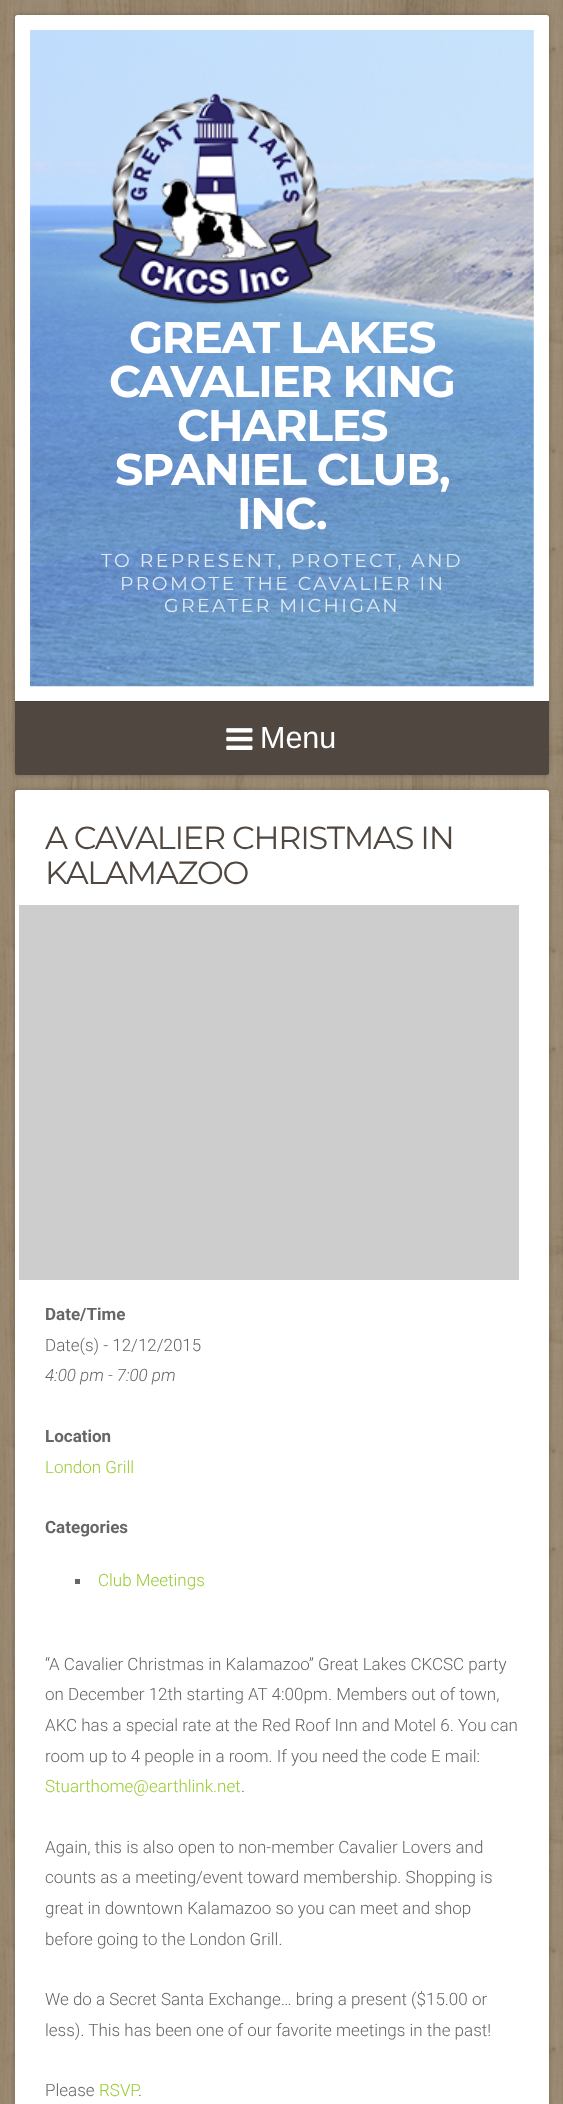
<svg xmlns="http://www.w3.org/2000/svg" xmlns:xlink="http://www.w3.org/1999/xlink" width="563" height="2104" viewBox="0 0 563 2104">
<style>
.cls-1{font:bold 44.25px Montserrat;letter-spacing:-1.25px;fill:#ffffff}
.cls-2{font:18.75px Montserrat;letter-spacing:2.5px;fill:#e1eaf4}
.cls-3{font:30.5px Liberation Sans;fill:#ffffff}
.cls-4{font:32px Montserrat;letter-spacing:-1.25px;fill:#504741}
.cls-5{font:bold 17px Roboto;fill:#666666}
.cls-6{font:300 17px Roboto;fill:#666666}
.cls-7{font:italic 300 17px Roboto;fill:#666666}
.cls-8{font:300 17px Roboto;fill:#99cc33}
</style>
<rect width="100%" height="100%" fill="#ffffff"/>
<image xlink:href="image0.png" x="0" y="0" width="563" height="2104"/>
<rect fill="#000000" fill-opacity="0.24" filter="blur(2.5px)" x="15" y="15" width="534" height="760" rx="2.5"/>
<path fill="#ffffff" d="M17.5 15H546.5C548 15 549 16 549 17.5V701H15V17.5C15 16 16 15 17.5 15Z"/>
<image xlink:href="image1.png" x="30" y="30" width="504" height="657"/>
<image xlink:href="image2.png" x="99" y="92" width="234" height="213"/>
<path fill="#504741" d="M15 701H549V772.5C549 774 548 775 546.5 775H17.5C16 775 15 774 15 772.5Z"/>
<rect fill="#48403b" x="15" y="701" width="534" height="1"/>
<image xlink:href="image3.png" x="226" y="728" width="27" height="22"/>
<rect fill="#000000" fill-opacity="0.24" filter="blur(2.5px)" x="15" y="790" width="534" height="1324" rx="2.5"/>
<rect fill="#ffffff" x="15" y="790" width="534" height="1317" rx="2.5"/>
<rect fill="#cdcdcd" x="19" y="905" width="500" height="375"/>
<rect fill="#666666" x="75" y="1579" width="5" height="5"/>
<text class="cls-1" x="129" y="353">GREAT LAKES</text>
<text class="cls-1" x="109" y="397">CAVALIER KING</text>
<text class="cls-1" x="177" y="441">CHARLES</text>
<text class="cls-1" x="115" y="485">SPANIEL CLUB,</text>
<text class="cls-1" x="237" y="529">INC.</text>
<text class="cls-2" x="101" y="567">TO REPRESENT, PROTECT, AND</text>
<text class="cls-2" x="120" y="590">PROMOTE THE CAVALIER IN</text>
<text class="cls-2" x="164" y="612">GREATER MICHIGAN</text>
<text class="cls-3" x="260" y="748">Menu</text>
<text class="cls-4"><tspan x="45" y="849">A CAVALIER CHRISTMAS IN</tspan><tspan x="45" y="884">KALAMAZOO</tspan></text>
<text class="cls-5" x="45" y="1320">Date/Time</text>
<text class="cls-6" x="45" y="1351">Date(s) - 12/12/2015</text>
<text class="cls-7" x="45" y="1381">4:00 pm - 7:00 pm</text>
<text class="cls-5" x="45" y="1442">Location</text>
<text class="cls-8" x="45" y="1473">London Grill</text>
<text class="cls-5" x="45" y="1533">Categories</text>
<text class="cls-8" x="98" y="1586">Club Meetings</text>
<text class="cls-6"><tspan x="45" y="1670">“A Cavalier Christmas in Kalamazoo” Great Lakes CKCSC party</tspan><tspan x="45" y="1700">on December 12th starting AT 4:00pm. Members out of town,</tspan><tspan x="45" y="1731">AKC has a special rate at the Red Roof Inn and Motel 6. You can</tspan><tspan x="45" y="1762">room up to 4 people in a room. If you need the code E mail:</tspan></text>
<text class="cls-8" x="45" y="1792">Stuarthome@earthlink.net</text>
<text class="cls-6" x="241" y="1792">.</text>
<text class="cls-6"><tspan x="45" y="1853">Again, this is also open to non-member Cavalier Lovers and</tspan><tspan x="45" y="1883">counts as a meeting/event toward membership. Shopping is</tspan><tspan x="45" y="1914">great in downtown Kalamazoo so you can meet and shop</tspan><tspan x="45" y="1945">before going to the London Grill.</tspan></text>
<text class="cls-6"><tspan x="45" y="2005">We do a Secret Santa Exchange… bring a present ($15.00 or</tspan><tspan x="45" y="2036">less). This has been one of our favorite meetings in the past!</tspan></text>
<text class="cls-6" x="45" y="2096">Please</text>
<text class="cls-8" x="99" y="2096">RSVP</text>
<text class="cls-6" x="138" y="2096">.</text>
</svg>
